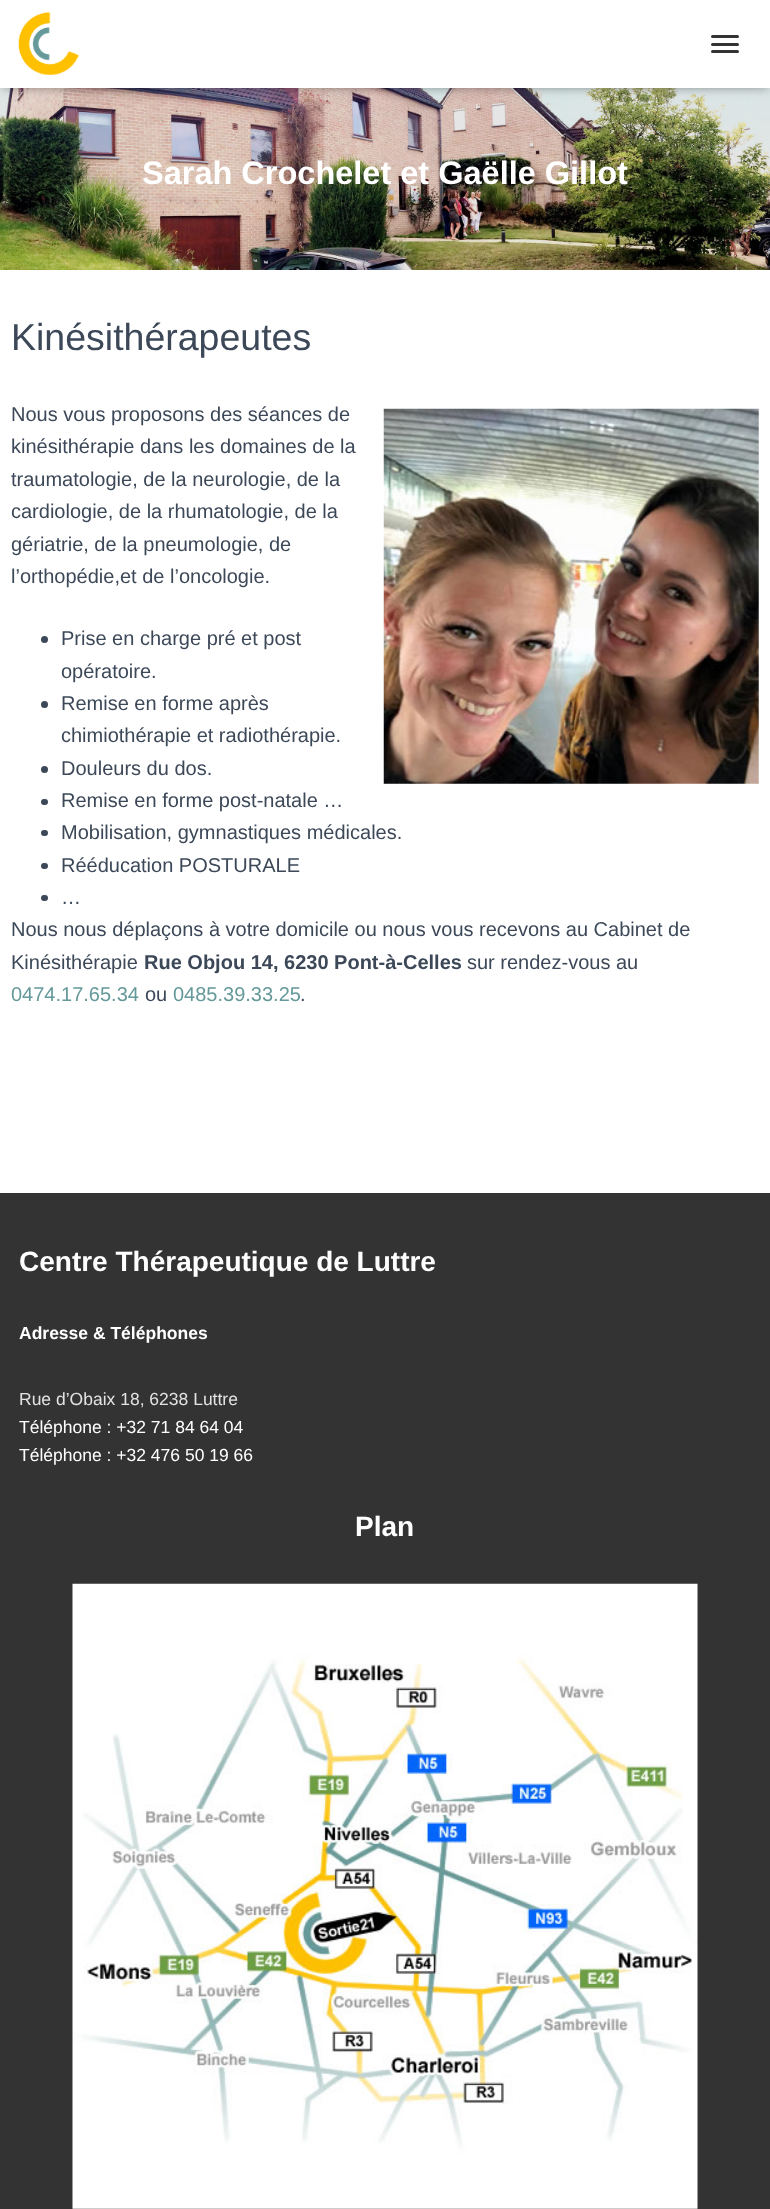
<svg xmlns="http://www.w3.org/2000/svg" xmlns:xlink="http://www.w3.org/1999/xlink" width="770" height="2209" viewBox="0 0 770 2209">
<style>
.cls-1{font:bold 32.5px Liberation Sans;fill:#ffffff}
.cls-2{font:37.5px Liberation Sans;fill:#3c4858}
.cls-3{font:20px Liberation Sans;fill:#3c4858}
.cls-4{font:bold 20px Liberation Sans;fill:#3c4858}
.cls-5{font:20px Liberation Sans;fill:#669999}
.cls-6{font:bold 28px Liberation Sans;fill:#ffffff}
.cls-7{font:bold 17.5px Liberation Sans;fill:#ffffff}
.cls-8{font:17.5px Liberation Sans;fill:#e2e2e2}
.cls-9{font:17.5px Liberation Sans;fill:#ffffff}
</style>
<rect width="100%" height="100%" fill="#333333"/>
<image xlink:href="image1.png" x="0" y="88" width="770" height="182"/>
<rect fill="#000000" fill-opacity="0.1" filter="blur(3px)" x="3" y="8" width="765" height="82"/>
<rect fill="#000000" fill-opacity="0.12" filter="blur(6px)" x="0" y="1" width="770" height="88"/>
<rect fill="#000000" fill-opacity="0.42" filter="blur(6px)" x="8" y="9" width="755" height="72"/>
<rect fill="#ffffff" x="0" y="0" width="770" height="88"/>
<image xlink:href="image0.png" x="18" y="12" width="62" height="63"/>
<rect fill="#333333" x="711" y="35" width="28" height="3" rx="1.5"/>
<rect fill="#333333" x="711" y="43" width="28" height="3" rx="1.5"/>
<rect fill="#333333" x="711" y="50" width="28" height="3" rx="1.5"/>
<rect fill="#ffffff" x="0" y="270" width="770" height="923"/>
<image xlink:href="image2.png" x="383" y="408" width="376" height="376"/>
<circle fill="#3c4858" cx="44.5" cy="639.5" r="3.5"/>
<circle fill="#3c4858" cx="44.5" cy="704.5" r="3.5"/>
<circle fill="#3c4858" cx="44.5" cy="769.5" r="3.5"/>
<rect fill="#3c4858" x="41" y="799" width="7" height="6" rx="3"/>
<rect fill="#3c4858" x="41" y="830" width="7" height="6" rx="3"/>
<rect fill="#3c4858" x="41" y="863" width="7" height="6" rx="3"/>
<rect fill="#3c4858" x="41" y="895" width="7" height="6" rx="3"/>
<image xlink:href="image3.png" x="72" y="1583" width="626" height="626"/>
<text class="cls-1" x="142" y="184">Sarah Crochelet et Gaëlle Gillot</text>
<text class="cls-2" x="11" y="350">Kinésithérapeutes</text>
<text class="cls-3"><tspan x="11" y="421">Nous vous proposons des séances de</tspan><tspan x="11" y="453">kinésithérapie dans les domaines de la</tspan><tspan x="11" y="486">traumatologie, de la neurologie, de la</tspan><tspan x="11" y="518">cardiologie, de la rhumatologie, de la</tspan><tspan x="11" y="551">gériatrie, de la pneumologie, de</tspan><tspan x="11" y="583">l’orthopédie,et de l’oncologie.</tspan></text>
<text class="cls-3"><tspan x="61" y="645">Prise en charge pré et post</tspan><tspan x="61" y="678">opératoire.</tspan><tspan x="61" y="710">Remise en forme après</tspan><tspan x="61" y="742">chimiothérapie et radiothérapie.</tspan><tspan x="61" y="775">Douleurs du dos.</tspan><tspan x="61" y="807">Remise en forme post-natale …</tspan><tspan x="61" y="839">Mobilisation, gymnastiques médicales.</tspan><tspan x="61" y="872">Rééducation POSTURALE</tspan><tspan x="61" y="904">…</tspan></text>
<text class="cls-3"><tspan x="11" y="936">Nous nous déplaçons à votre domicile ou nous vous recevons au Cabinet de</tspan><tspan x="11" y="969">Kinésithérapie</tspan></text>
<text class="cls-4" x="144" y="969">Rue Objou 14, 6230 Pont-à-Celles</text>
<text class="cls-3" x="467" y="969">sur rendez-vous au</text>
<text class="cls-5" x="11" y="1001">0474.17.65.34</text>
<text class="cls-3" x="145" y="1001">ou</text>
<text class="cls-5" x="173" y="1001">0485.39.33.25</text>
<text class="cls-3" x="300" y="1001">.</text>
<text class="cls-6" x="19" y="1271">Centre Thérapeutique de Luttre</text>
<text class="cls-7" x="19" y="1339">Adresse &amp; Téléphones</text>
<text class="cls-8" x="19" y="1405">Rue d’Obaix 18, 6238 Luttre</text>
<text class="cls-9"><tspan x="19" y="1433">Téléphone : +32 71 84 64 04</tspan><tspan x="19" y="1461">Téléphone : +32 476 50 19 66</tspan></text>
<text class="cls-6" x="355" y="1536">Plan</text>
</svg>
